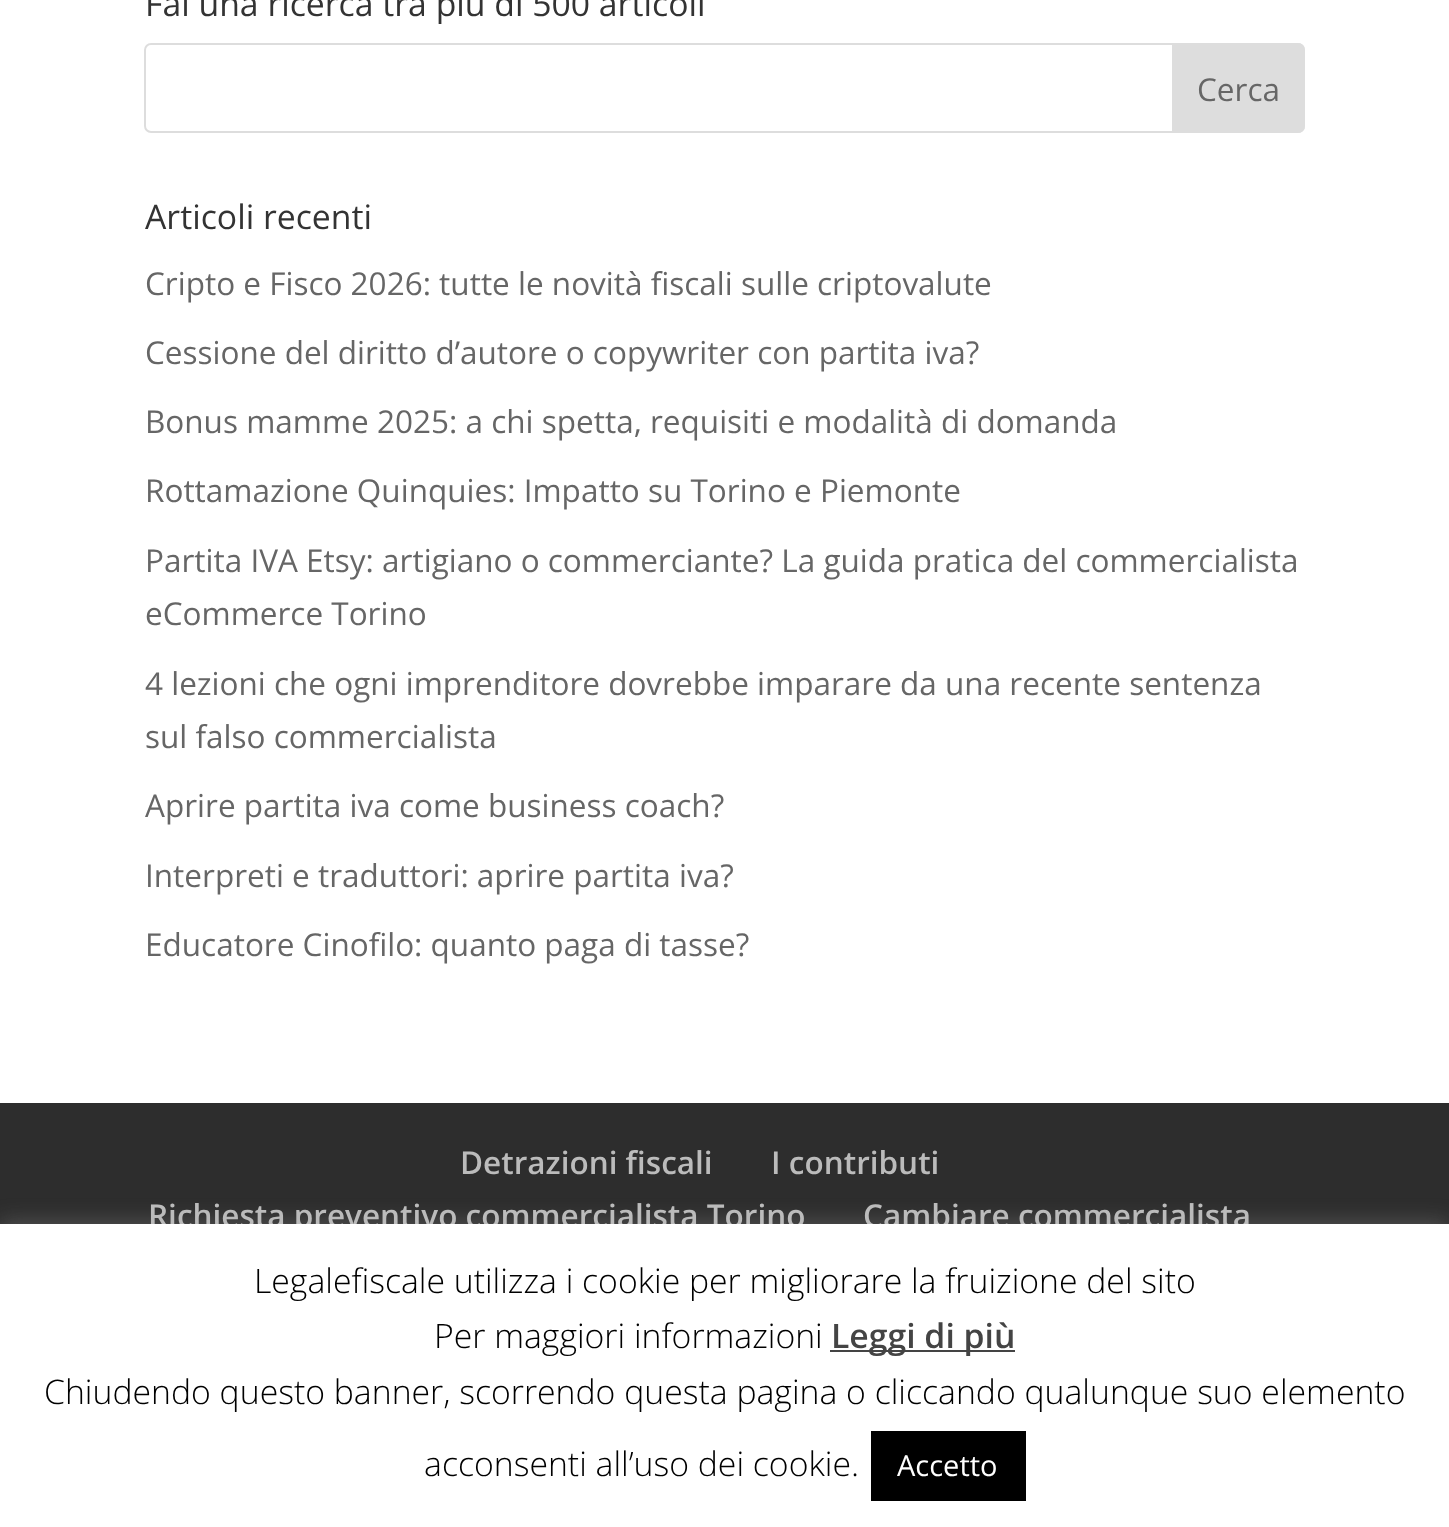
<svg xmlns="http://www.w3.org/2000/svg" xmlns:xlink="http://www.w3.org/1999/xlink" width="1449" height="1527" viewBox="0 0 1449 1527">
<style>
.cls-1{font:33.75px Open Sans;fill:#333333}
.cls-2{font:31.5px Open Sans;fill:#666666}
.cls-3{font:600 31.5px Open Sans;fill:#bbbbbb}
.cls-4{font:300 33.75px Open Sans;fill:#000000}
.cls-5{font:600 33.75px Open Sans;fill:#444444}
.cls-6{font:29px Open Sans;fill:#ffffff}
</style>
<rect width="100%" height="100%" fill="#ffffff"/>
<rect fill="none" stroke="#dddddd" stroke-width="2" x="145" y="44" width="1159" height="88" rx="6"/>
<path fill="#dddddd" stroke="#dddddd" stroke-width="2" d="M1173 44H1298C1301.5 44 1304 46.5 1304 50V126C1304 129.5 1301.5 132 1298 132H1173Z"/>
<rect fill="#2d2d2d" x="0" y="1103" width="1449" height="121"/>
<rect fill="#acabab" fill-opacity="0.3" filter="blur(11px)" x="0" y="1222" width="1449" height="304"/>
<text class="cls-1" x="145" y="16">Fai una ricerca tra più di 500 articoli</text>
<text class="cls-2" x="1197" y="101">Cerca</text>
<text class="cls-1" x="145" y="229">Articoli recenti</text>
<text class="cls-2" x="145" y="295">Cripto e Fisco 2026: tutte le novità fiscali sulle criptovalute</text>
<text class="cls-2" x="145" y="364">Cessione del diritto d’autore o copywriter con partita iva?</text>
<text class="cls-2" x="145" y="433">Bonus mamme 2025: a chi spetta, requisiti e modalità di domanda</text>
<text class="cls-2" x="145" y="502">Rottamazione Quinquies: Impatto su Torino e Piemonte</text>
<text class="cls-2"><tspan x="145" y="572">Partita IVA Etsy: artigiano o commerciante? La guida pratica del commercialista</tspan><tspan x="145" y="625">eCommerce Torino</tspan></text>
<text class="cls-2"><tspan x="145" y="695">4 lezioni che ogni imprenditore dovrebbe imparare da una recente sentenza</tspan><tspan x="145" y="748">sul falso commercialista</tspan></text>
<text class="cls-2" x="145" y="817">Aprire partita iva come business coach?</text>
<text class="cls-2" x="145" y="887">Interpreti e traduttori: aprire partita iva?</text>
<text class="cls-2" x="145" y="956">Educatore Cinofilo: quanto paga di tasse?</text>
<text class="cls-3" x="460" y="1174">Detrazioni fiscali</text>
<text class="cls-3" x="771" y="1174">I contributi</text>
<text class="cls-3" x="148" y="1227">Richiesta preventivo commercialista Torino</text>
<text class="cls-3" x="863" y="1227">Cambiare commercialista</text>
<rect fill="#ffffff" x="0" y="1224" width="1449" height="303"/>
<text class="cls-4" x="254" y="1293">Legalefiscale utilizza i cookie per migliorare la fruizione del sito</text>
<text class="cls-4" x="434" y="1348">Per maggiori informazioni</text>
<rect fill="#444444" x="830" y="1350" width="185" height="2"/>
<text class="cls-5" x="831" y="1348">Leggi di più</text>
<text class="cls-4" x="44" y="1404">Chiudendo questo banner, scorrendo questa pagina o cliccando qualunque suo elemento</text>
<text class="cls-4" x="424" y="1476">acconsenti all’uso dei cookie.</text>
<rect fill="#000000" x="871" y="1431" width="155" height="70"/>
<text class="cls-6" x="897" y="1476">Accetto</text>
</svg>
